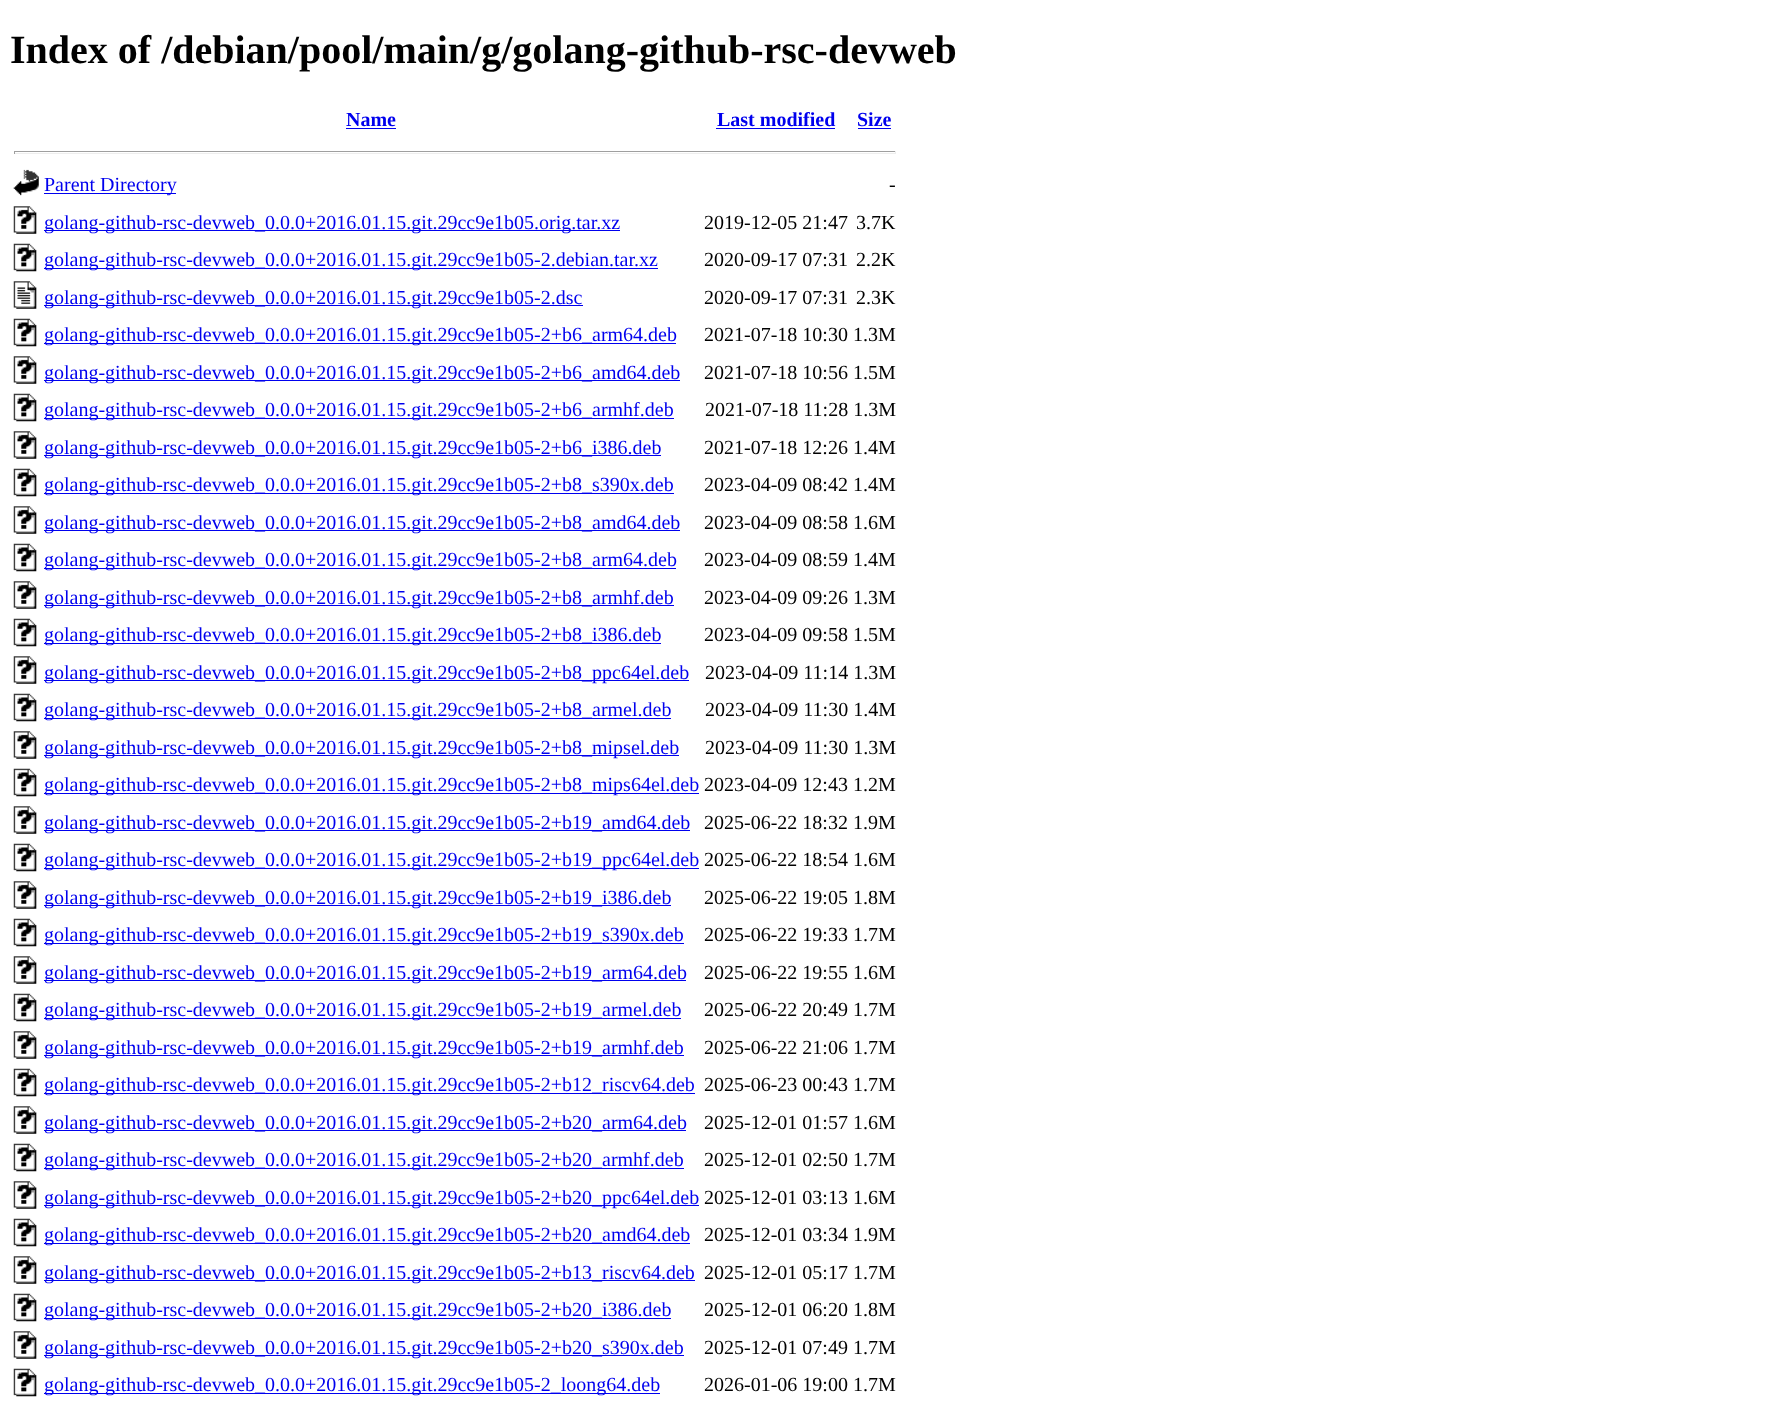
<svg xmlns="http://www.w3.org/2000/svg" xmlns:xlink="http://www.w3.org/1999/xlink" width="1775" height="1411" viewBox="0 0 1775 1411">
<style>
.cls-1{font:bold 40px Liberation Serif;fill:#000000}
.cls-2{font:bold 20px Liberation Serif;fill:#0000ee}
.cls-3{font:20px Liberation Serif;fill:#0000ee}
.cls-4{font:20px Liberation Serif;fill:#000000}
</style>
<rect width="100%" height="100%" fill="#ffffff"/>
<rect fill="#0000ee" x="346" y="128" width="50" height="1"/>
<rect fill="#0000ee" x="716" y="128" width="119" height="1"/>
<rect fill="#0000ee" x="858" y="128" width="33" height="1"/>
<rect fill="#9f9f9f" x="14" y="151" width="882" height="1"/>
<rect fill="#eeeeee" x="895" y="151" width="1" height="3"/>
<rect fill="#eeeeee" x="14" y="153" width="882" height="1"/>
<rect fill="#9f9f9f" x="14" y="151" width="1" height="3"/>
<image xlink:href="image0.png" x="13" y="169" width="26" height="27"/>
<rect fill="#0000ee" x="44" y="193" width="132" height="1"/>
<image xlink:href="image1.png" x="13" y="206" width="24" height="28"/>
<rect fill="#0000ee" x="44" y="230" width="576" height="1"/>
<image xlink:href="image2.png" x="13" y="243" width="24" height="29"/>
<rect fill="#0000ee" x="44" y="268" width="614" height="1"/>
<image xlink:href="image3.png" x="13" y="281" width="24" height="28"/>
<rect fill="#0000ee" x="44" y="305" width="539" height="1"/>
<image xlink:href="image2.png" x="13" y="318" width="24" height="29"/>
<rect fill="#0000ee" x="44" y="343" width="632" height="1"/>
<image xlink:href="image1.png" x="13" y="356" width="24" height="28"/>
<rect fill="#0000ee" x="44" y="380" width="636" height="1"/>
<image xlink:href="image2.png" x="13" y="393" width="24" height="29"/>
<rect fill="#0000ee" x="44" y="418" width="630" height="1"/>
<image xlink:href="image1.png" x="13" y="431" width="24" height="28"/>
<rect fill="#0000ee" x="44" y="455" width="617" height="1"/>
<image xlink:href="image2.png" x="13" y="468" width="24" height="29"/>
<rect fill="#0000ee" x="44" y="493" width="630" height="1"/>
<image xlink:href="image1.png" x="13" y="506" width="24" height="28"/>
<rect fill="#0000ee" x="44" y="530" width="636" height="1"/>
<image xlink:href="image2.png" x="13" y="543" width="24" height="29"/>
<rect fill="#0000ee" x="44" y="568" width="632" height="1"/>
<image xlink:href="image4.png" x="13" y="581" width="24" height="28"/>
<rect fill="#0000ee" x="44" y="605" width="630" height="1"/>
<image xlink:href="image2.png" x="13" y="618" width="24" height="29"/>
<rect fill="#0000ee" x="44" y="643" width="617" height="1"/>
<image xlink:href="image1.png" x="13" y="656" width="24" height="28"/>
<rect fill="#0000ee" x="44" y="680" width="645" height="1"/>
<image xlink:href="image2.png" x="13" y="693" width="24" height="29"/>
<rect fill="#0000ee" x="44" y="718" width="627" height="1"/>
<image xlink:href="image1.png" x="13" y="731" width="24" height="28"/>
<rect fill="#0000ee" x="44" y="755" width="635" height="1"/>
<image xlink:href="image2.png" x="13" y="768" width="24" height="29"/>
<rect fill="#0000ee" x="44" y="793" width="655" height="1"/>
<image xlink:href="image1.png" x="13" y="806" width="24" height="28"/>
<rect fill="#0000ee" x="44" y="830" width="646" height="1"/>
<image xlink:href="image2.png" x="13" y="843" width="24" height="29"/>
<rect fill="#0000ee" x="44" y="868" width="655" height="1"/>
<image xlink:href="image1.png" x="13" y="881" width="24" height="28"/>
<rect fill="#0000ee" x="44" y="905" width="627" height="1"/>
<image xlink:href="image2.png" x="13" y="918" width="24" height="29"/>
<rect fill="#0000ee" x="44" y="943" width="640" height="1"/>
<image xlink:href="image1.png" x="13" y="956" width="24" height="28"/>
<rect fill="#0000ee" x="44" y="980" width="642" height="1"/>
<image xlink:href="image2.png" x="13" y="993" width="24" height="29"/>
<rect fill="#0000ee" x="44" y="1018" width="637" height="1"/>
<image xlink:href="image1.png" x="13" y="1031" width="24" height="28"/>
<rect fill="#0000ee" x="44" y="1055" width="640" height="1"/>
<image xlink:href="image2.png" x="13" y="1068" width="24" height="29"/>
<rect fill="#0000ee" x="44" y="1093" width="651" height="1"/>
<image xlink:href="image1.png" x="13" y="1106" width="24" height="28"/>
<rect fill="#0000ee" x="44" y="1130" width="642" height="1"/>
<image xlink:href="image2.png" x="13" y="1143" width="24" height="29"/>
<rect fill="#0000ee" x="44" y="1168" width="640" height="1"/>
<image xlink:href="image1.png" x="13" y="1181" width="24" height="28"/>
<rect fill="#0000ee" x="44" y="1205" width="655" height="1"/>
<image xlink:href="image2.png" x="13" y="1218" width="24" height="29"/>
<rect fill="#0000ee" x="44" y="1243" width="646" height="1"/>
<image xlink:href="image1.png" x="13" y="1256" width="24" height="28"/>
<rect fill="#0000ee" x="44" y="1280" width="651" height="1"/>
<image xlink:href="image2.png" x="13" y="1293" width="24" height="29"/>
<rect fill="#0000ee" x="44" y="1318" width="627" height="1"/>
<image xlink:href="image1.png" x="13" y="1331" width="24" height="28"/>
<rect fill="#0000ee" x="44" y="1355" width="640" height="1"/>
<image xlink:href="image2.png" x="13" y="1368" width="24" height="29"/>
<rect fill="#0000ee" x="44" y="1393" width="616" height="1"/>
<text class="cls-1" x="10" y="63">Index of /debian/pool/main/g/golang-github-rsc-devweb</text>
<text class="cls-2" x="346" y="126">Name</text>
<text class="cls-2" x="717" y="126">Last modified</text>
<text class="cls-2" x="857" y="126">Size</text>
<text class="cls-3" x="44" y="191">Parent Directory</text>
<text class="cls-4" x="889" y="191">-</text>
<text class="cls-3" x="44" y="229">golang-github-rsc-devweb_0.0.0+2016.01.15.git.29cc9e1b05.orig.tar.xz</text>
<text class="cls-4" x="704" y="229">2019-12-05 21:47</text>
<text class="cls-4" x="856" y="229">3.7K</text>
<text class="cls-3" x="44" y="266">golang-github-rsc-devweb_0.0.0+2016.01.15.git.29cc9e1b05-2.debian.tar.xz</text>
<text class="cls-4" x="704" y="266">2020-09-17 07:31</text>
<text class="cls-4" x="856" y="266">2.2K</text>
<text class="cls-3" x="44" y="304">golang-github-rsc-devweb_0.0.0+2016.01.15.git.29cc9e1b05-2.dsc</text>
<text class="cls-4" x="704" y="304">2020-09-17 07:31</text>
<text class="cls-4" x="856" y="304">2.3K</text>
<text class="cls-3" x="44" y="341">golang-github-rsc-devweb_0.0.0+2016.01.15.git.29cc9e1b05-2+b6_arm64.deb</text>
<text class="cls-4" x="704" y="341">2021-07-18 10:30 1.3M</text>
<text class="cls-3" x="44" y="379">golang-github-rsc-devweb_0.0.0+2016.01.15.git.29cc9e1b05-2+b6_amd64.deb</text>
<text class="cls-4" x="704" y="379">2021-07-18 10:56 1.5M</text>
<text class="cls-3" x="44" y="416">golang-github-rsc-devweb_0.0.0+2016.01.15.git.29cc9e1b05-2+b6_armhf.deb</text>
<text class="cls-4" x="705" y="416">2021-07-18 11:28 1.3M</text>
<text class="cls-3" x="44" y="454">golang-github-rsc-devweb_0.0.0+2016.01.15.git.29cc9e1b05-2+b6_i386.deb</text>
<text class="cls-4" x="704" y="454">2021-07-18 12:26 1.4M</text>
<text class="cls-3" x="44" y="491">golang-github-rsc-devweb_0.0.0+2016.01.15.git.29cc9e1b05-2+b8_s390x.deb</text>
<text class="cls-4" x="704" y="491">2023-04-09 08:42 1.4M</text>
<text class="cls-3" x="44" y="529">golang-github-rsc-devweb_0.0.0+2016.01.15.git.29cc9e1b05-2+b8_amd64.deb</text>
<text class="cls-4" x="704" y="529">2023-04-09 08:58 1.6M</text>
<text class="cls-3" x="44" y="566">golang-github-rsc-devweb_0.0.0+2016.01.15.git.29cc9e1b05-2+b8_arm64.deb</text>
<text class="cls-4" x="704" y="566">2023-04-09 08:59 1.4M</text>
<text class="cls-3" x="44" y="604">golang-github-rsc-devweb_0.0.0+2016.01.15.git.29cc9e1b05-2+b8_armhf.deb</text>
<text class="cls-4" x="704" y="604">2023-04-09 09:26 1.3M</text>
<text class="cls-3" x="44" y="641">golang-github-rsc-devweb_0.0.0+2016.01.15.git.29cc9e1b05-2+b8_i386.deb</text>
<text class="cls-4" x="704" y="641">2023-04-09 09:58 1.5M</text>
<text class="cls-3" x="44" y="679">golang-github-rsc-devweb_0.0.0+2016.01.15.git.29cc9e1b05-2+b8_ppc64el.deb</text>
<text class="cls-4" x="705" y="679">2023-04-09 11:14 1.3M</text>
<text class="cls-3" x="44" y="716">golang-github-rsc-devweb_0.0.0+2016.01.15.git.29cc9e1b05-2+b8_armel.deb</text>
<text class="cls-4" x="705" y="716">2023-04-09 11:30 1.4M</text>
<text class="cls-3" x="44" y="754">golang-github-rsc-devweb_0.0.0+2016.01.15.git.29cc9e1b05-2+b8_mipsel.deb</text>
<text class="cls-4" x="705" y="754">2023-04-09 11:30 1.3M</text>
<text class="cls-3" x="44" y="791">golang-github-rsc-devweb_0.0.0+2016.01.15.git.29cc9e1b05-2+b8_mips64el.deb</text>
<text class="cls-4" x="704" y="791">2023-04-09 12:43 1.2M</text>
<text class="cls-3" x="44" y="829">golang-github-rsc-devweb_0.0.0+2016.01.15.git.29cc9e1b05-2+b19_amd64.deb</text>
<text class="cls-4" x="704" y="829">2025-06-22 18:32 1.9M</text>
<text class="cls-3" x="44" y="866">golang-github-rsc-devweb_0.0.0+2016.01.15.git.29cc9e1b05-2+b19_ppc64el.deb</text>
<text class="cls-4" x="704" y="866">2025-06-22 18:54 1.6M</text>
<text class="cls-3" x="44" y="904">golang-github-rsc-devweb_0.0.0+2016.01.15.git.29cc9e1b05-2+b19_i386.deb</text>
<text class="cls-4" x="704" y="904">2025-06-22 19:05 1.8M</text>
<text class="cls-3" x="44" y="941">golang-github-rsc-devweb_0.0.0+2016.01.15.git.29cc9e1b05-2+b19_s390x.deb</text>
<text class="cls-4" x="704" y="941">2025-06-22 19:33 1.7M</text>
<text class="cls-3" x="44" y="979">golang-github-rsc-devweb_0.0.0+2016.01.15.git.29cc9e1b05-2+b19_arm64.deb</text>
<text class="cls-4" x="704" y="979">2025-06-22 19:55 1.6M</text>
<text class="cls-3" x="44" y="1016">golang-github-rsc-devweb_0.0.0+2016.01.15.git.29cc9e1b05-2+b19_armel.deb</text>
<text class="cls-4" x="704" y="1016">2025-06-22 20:49 1.7M</text>
<text class="cls-3" x="44" y="1054">golang-github-rsc-devweb_0.0.0+2016.01.15.git.29cc9e1b05-2+b19_armhf.deb</text>
<text class="cls-4" x="704" y="1054">2025-06-22 21:06 1.7M</text>
<text class="cls-3" x="44" y="1091">golang-github-rsc-devweb_0.0.0+2016.01.15.git.29cc9e1b05-2+b12_riscv64.deb</text>
<text class="cls-4" x="704" y="1091">2025-06-23 00:43 1.7M</text>
<text class="cls-3" x="44" y="1129">golang-github-rsc-devweb_0.0.0+2016.01.15.git.29cc9e1b05-2+b20_arm64.deb</text>
<text class="cls-4" x="704" y="1129">2025-12-01 01:57 1.6M</text>
<text class="cls-3" x="44" y="1166">golang-github-rsc-devweb_0.0.0+2016.01.15.git.29cc9e1b05-2+b20_armhf.deb</text>
<text class="cls-4" x="704" y="1166">2025-12-01 02:50 1.7M</text>
<text class="cls-3" x="44" y="1204">golang-github-rsc-devweb_0.0.0+2016.01.15.git.29cc9e1b05-2+b20_ppc64el.deb</text>
<text class="cls-4" x="704" y="1204">2025-12-01 03:13 1.6M</text>
<text class="cls-3" x="44" y="1241">golang-github-rsc-devweb_0.0.0+2016.01.15.git.29cc9e1b05-2+b20_amd64.deb</text>
<text class="cls-4" x="704" y="1241">2025-12-01 03:34 1.9M</text>
<text class="cls-3" x="44" y="1279">golang-github-rsc-devweb_0.0.0+2016.01.15.git.29cc9e1b05-2+b13_riscv64.deb</text>
<text class="cls-4" x="704" y="1279">2025-12-01 05:17 1.7M</text>
<text class="cls-3" x="44" y="1316">golang-github-rsc-devweb_0.0.0+2016.01.15.git.29cc9e1b05-2+b20_i386.deb</text>
<text class="cls-4" x="704" y="1316">2025-12-01 06:20 1.8M</text>
<text class="cls-3" x="44" y="1354">golang-github-rsc-devweb_0.0.0+2016.01.15.git.29cc9e1b05-2+b20_s390x.deb</text>
<text class="cls-4" x="704" y="1354">2025-12-01 07:49 1.7M</text>
<text class="cls-3" x="44" y="1391">golang-github-rsc-devweb_0.0.0+2016.01.15.git.29cc9e1b05-2_loong64.deb</text>
<text class="cls-4" x="704" y="1391">2026-01-06 19:00 1.7M</text>
</svg>
